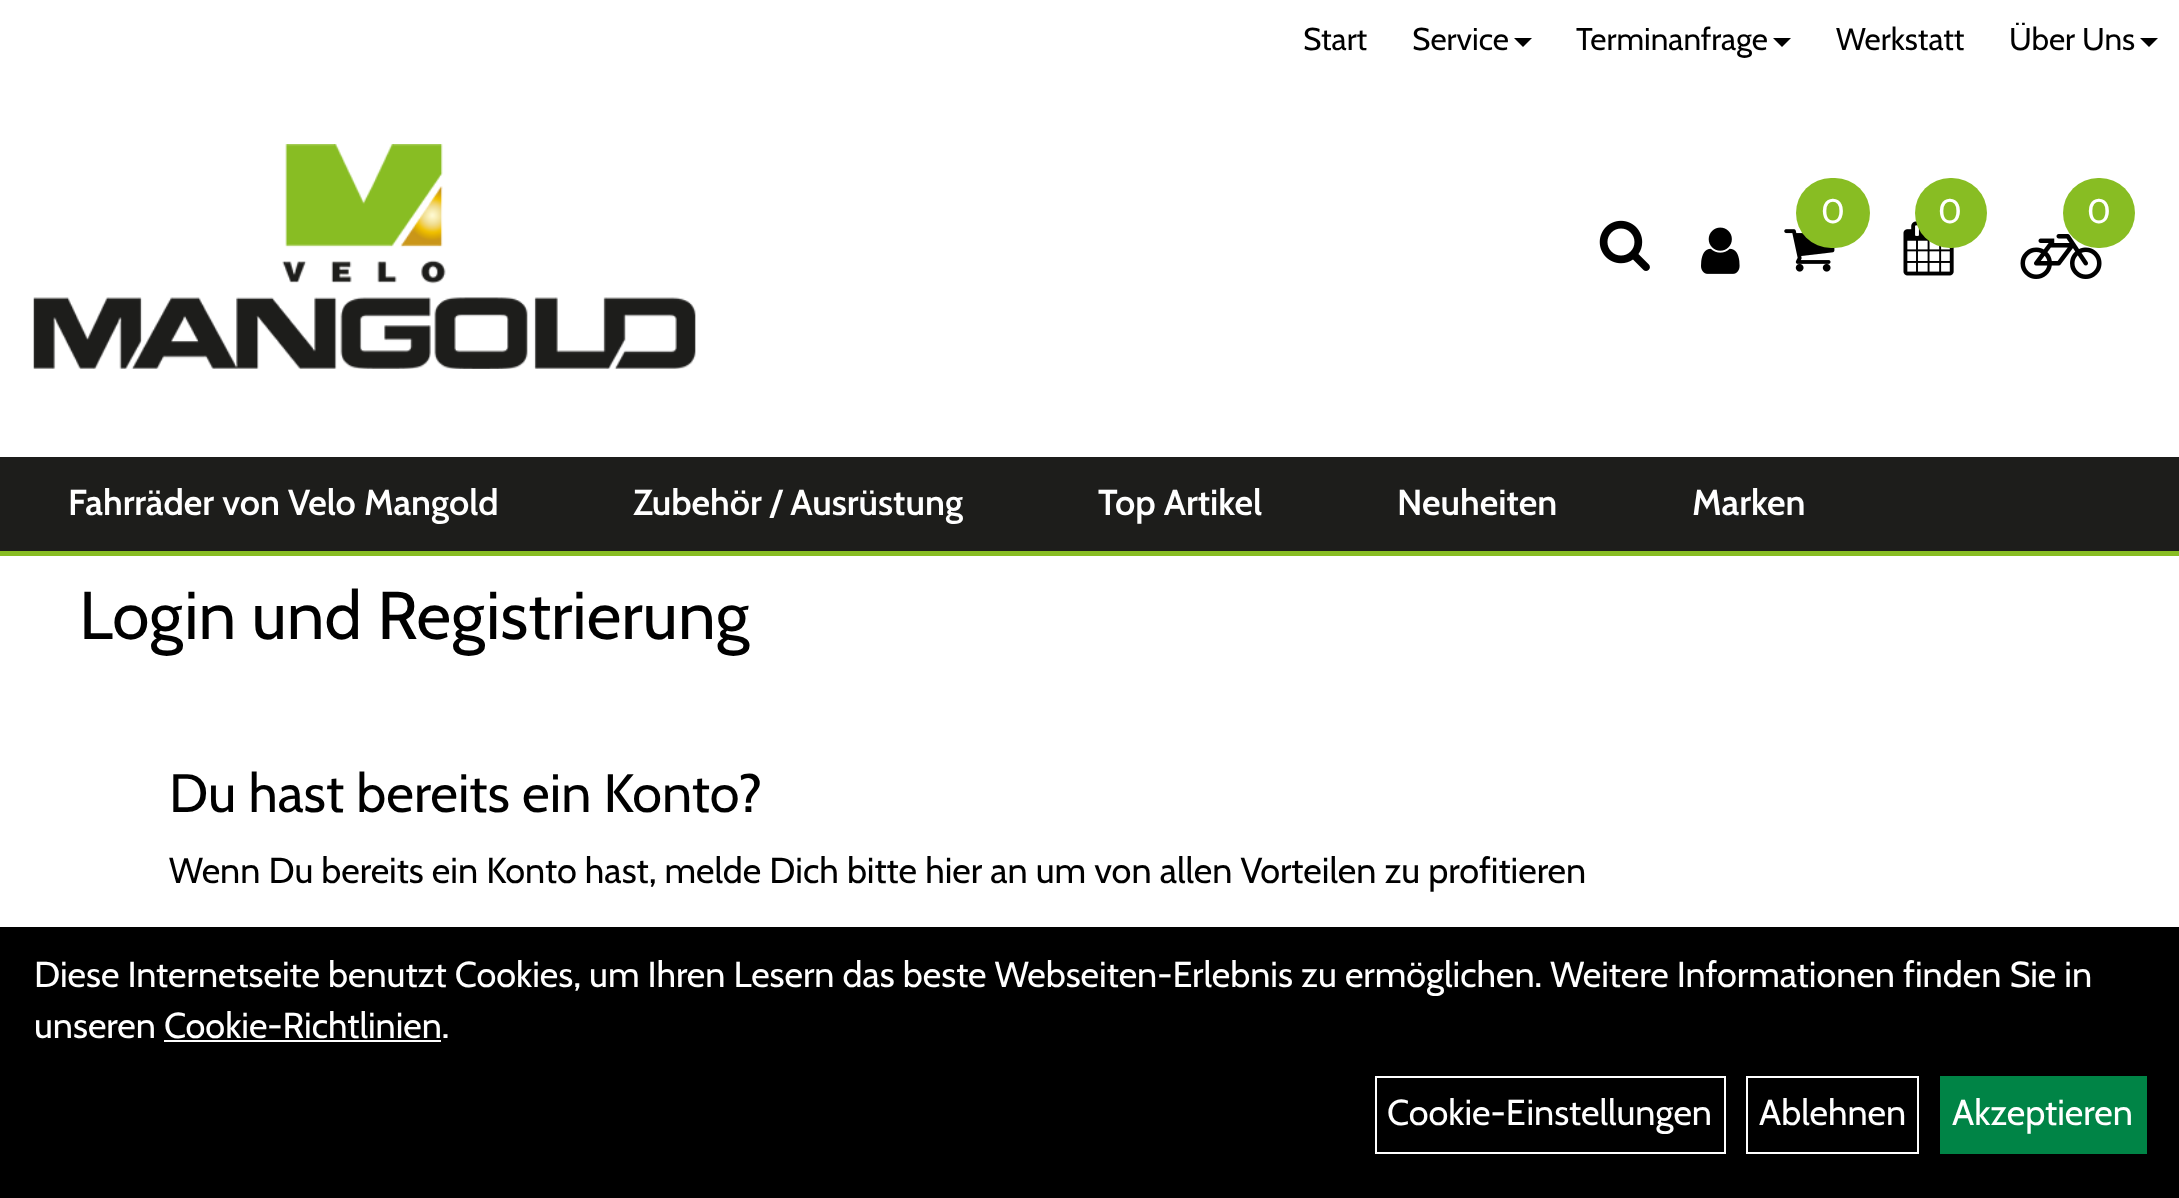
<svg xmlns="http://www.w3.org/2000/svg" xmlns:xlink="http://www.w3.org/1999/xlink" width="2179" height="1198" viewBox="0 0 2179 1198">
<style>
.cls-1{font:31.5px Cabin;fill:#000000}
.cls-2{font:34px Cabin;fill:#ffffff}
.cls-3{font:600 36px Cabin;fill:#ffffff}
.cls-4{font:67.5px Cabin;fill:#000000}
.cls-5{font:54px Cabin;fill:#000000}
.cls-6{font:36px Cabin;fill:#000000}
.cls-7{font:36px Cabin;fill:#ffffff}
</style>
<rect width="100%" height="100%" fill="#ffffff"/>
<path fill="#000000" d="M1514 38H1532L1523 47Z"/>
<path fill="#000000" d="M1773 38H1791L1782 47Z"/>
<path fill="#000000" d="M2140 38H2158L2149 47Z"/>
<image xlink:href="image0.png" x="33" y="144" width="663" height="225"/>
<image xlink:href="image1.png" x="1784" y="229" width="51" height="43"/>
<rect fill="#88bd23" x="1796" y="178" width="74" height="70" rx="35"/>
<image xlink:href="image2.png" x="1903" y="221" width="51" height="55"/>
<rect fill="#88bd23" x="1915" y="178" width="72" height="70" rx="35"/>
<image xlink:href="image3.png" x="2020" y="234" width="82" height="45"/>
<rect fill="#88bd23" x="2063" y="178" width="72" height="70" rx="35"/>
<image xlink:href="image4.png" x="1599" y="220" width="51" height="51"/>
<image xlink:href="image5.png" x="1701" y="227" width="39" height="47"/>
<rect fill="#1d1d1b" x="0" y="457" width="2179" height="94"/>
<rect fill="#88bd23" x="0" y="551" width="2179" height="5"/>
<rect fill="#000000" x="0" y="927" width="2179" height="271"/>
<rect fill="#ffffff" x="164" y="1040" width="277" height="2"/>
<rect fill="none" stroke="#ffffff" stroke-width="2" x="1376" y="1077" width="349" height="76"/>
<rect fill="none" stroke="#ffffff" stroke-width="2" x="1747" y="1077" width="171" height="76"/>
<rect fill="#008446" x="1940" y="1076" width="207" height="78"/>
<text class="cls-1" x="1303" y="50">Start</text>
<text class="cls-1" x="1412" y="50">Service</text>
<text class="cls-1" x="1576" y="50">Terminanfrage</text>
<text class="cls-1" x="1836" y="50">Werkstatt</text>
<text class="cls-1" x="2009" y="50">Über Uns</text>
<text class="cls-2" x="1821" y="223">0</text>
<text class="cls-2" x="1938" y="223">0</text>
<text class="cls-2" x="2087" y="223">0</text>
<text class="cls-3" x="68" y="515">Fahrräder von Velo Mangold</text>
<text class="cls-3" x="633" y="515">Zubehör / Ausrüstung</text>
<text class="cls-3" x="1098" y="515">Top Artikel</text>
<text class="cls-3" x="1397" y="515">Neuheiten</text>
<text class="cls-3" x="1692" y="515">Marken</text>
<text class="cls-4" x="79" y="639">Login und Registrierung</text>
<text class="cls-5" x="169" y="812">Du hast bereits ein Konto?</text>
<text class="cls-6" x="169" y="883">Wenn Du bereits ein Konto hast, melde Dich bitte hier an um von allen Vorteilen zu profitieren</text>
<text class="cls-7"><tspan x="34" y="987">Diese Internetseite benutzt Cookies, um Ihren Lesern das beste Webseiten-Erlebnis zu ermöglichen. Weitere Informationen finden Sie in</tspan><tspan x="34" y="1038">unseren Cookie-Richtlinien.</tspan></text>
<text class="cls-7" x="1387" y="1125">Cookie-Einstellungen</text>
<text class="cls-7" x="1759" y="1125">Ablehnen</text>
<text class="cls-7" x="1952" y="1125">Akzeptieren</text>
</svg>
